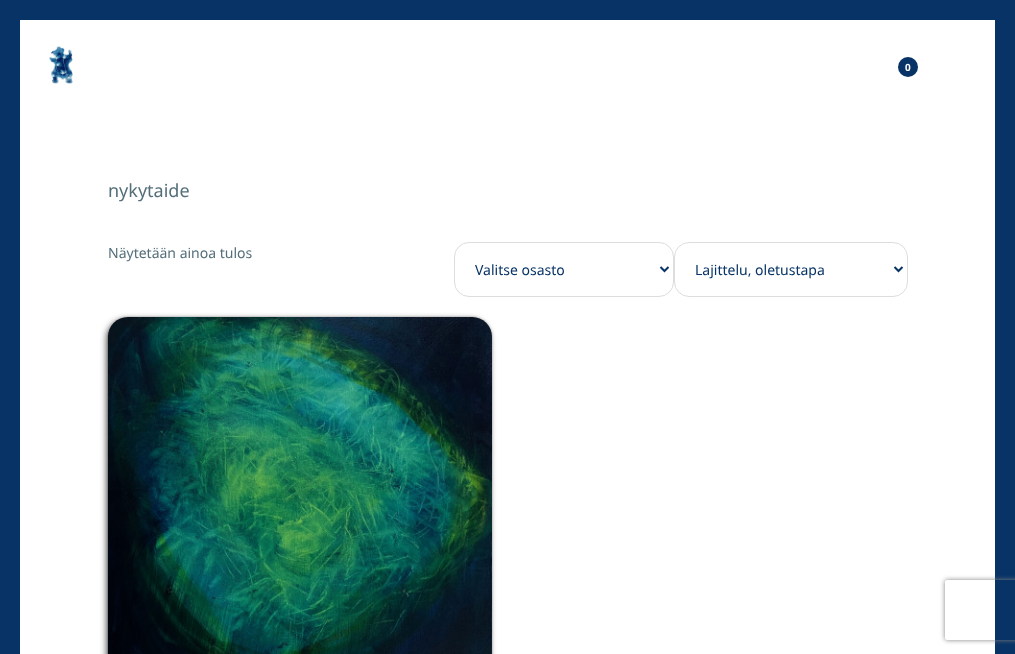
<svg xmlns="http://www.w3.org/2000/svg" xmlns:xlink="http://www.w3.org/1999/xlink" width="1015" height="654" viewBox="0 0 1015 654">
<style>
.cls-1{font:bold 10px Noto Sans;fill:#ffffff}
.cls-2{font:18px Noto Sans;fill:#546e7a}
.cls-3{font:14px Noto Sans;fill:#546e7a}
.cls-4{font:14px Noto Sans;fill:#073366}
</style>
<defs>
<clipPath id="clip1"><path d="M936 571H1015V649H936ZM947 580H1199C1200 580 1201 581 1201 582V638C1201 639 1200 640 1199 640H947C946 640 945 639 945 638V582C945 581 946 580 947 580Z" clip-rule="evenodd"/></clipPath>
</defs>
<rect width="100%" height="100%" fill="#073366"/>
<rect fill="#ffffff" x="20" y="20" width="975" height="634"/>
<image xlink:href="image0.png" x="49" y="46" width="24" height="38"/>
<circle fill="#073366" cx="908" cy="67" r="10"/>
<rect fill="none" stroke="#dddddd" x="454.5" y="242.5" width="219" height="54" rx="14.5"/>
<path fill="none" stroke="#073366" stroke-width="2" d="M660.5 267L664.5 271L668.5 267"/>
<rect fill="none" stroke="#dddddd" x="674.5" y="242.5" width="233" height="54" rx="14.5"/>
<path fill="none" stroke="#073366" stroke-width="2" d="M894.5 267L898.5 271L902.5 267"/>
<rect fill="#000000" fill-opacity="0.61" filter="blur(1.5px)" x="109" y="318" width="382" height="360" rx="19"/>
<rect fill="#000000" fill-opacity="0.75" filter="blur(3.5px)" x="107" y="320" width="382" height="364" rx="19"/>
<image xlink:href="image1.png" x="108" y="317" width="384" height="337"/>
<g clip-path="url(#clip1)">
<rect fill="#808080" filter="blur(2.5px)" x="945" y="580" width="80" height="60" rx="2"/>
</g>
<text class="cls-1" x="905" y="71">0</text>
<text class="cls-2" x="108" y="197">nykytaide</text>
<text class="cls-3" x="108" y="258">Näytetään ainoa tulos</text>
<text class="cls-4" x="475" y="275">Valitse osasto</text>
<text class="cls-4" x="695" y="275">Lajittelu, oletustapa</text>
</svg>
